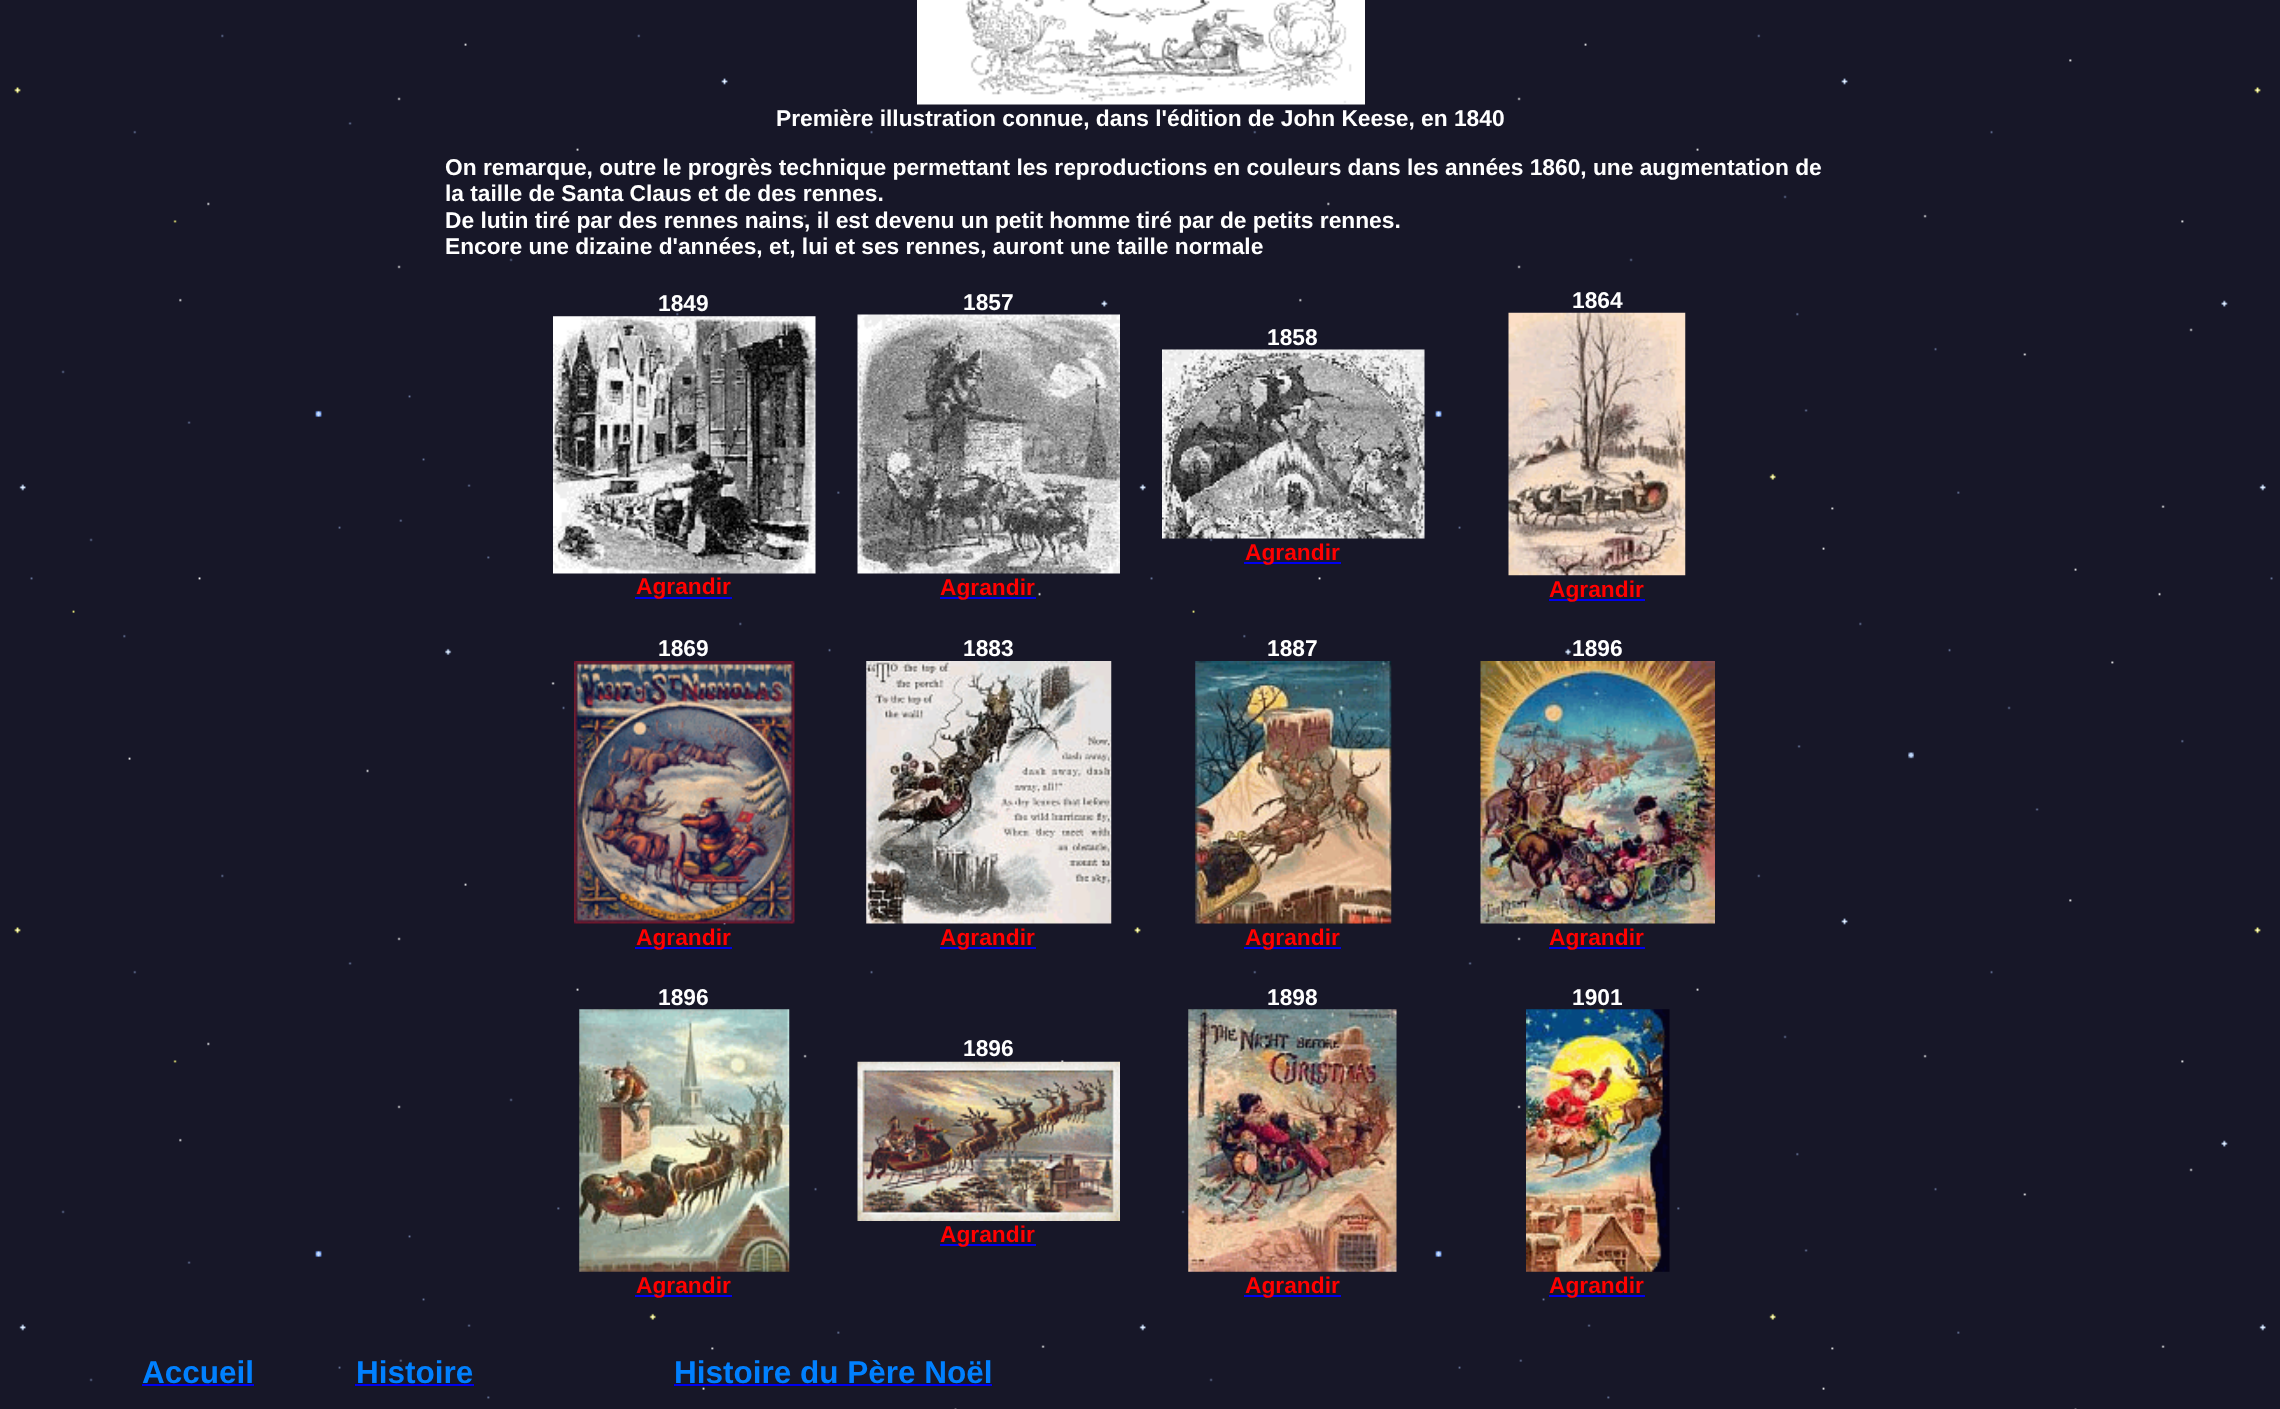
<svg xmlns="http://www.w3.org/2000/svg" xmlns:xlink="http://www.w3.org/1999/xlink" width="2280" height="1409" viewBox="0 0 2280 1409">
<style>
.cls-1{font:bold 22.75px Liberation Sans;fill:#ffffff}
.cls-2{font:bold 22.75px Liberation Sans;fill:#ff0000}
.cls-3{font:bold 31.5px Liberation Sans;fill:#0080ff}
</style>
<rect width="100%" height="100%" fill="#ffffff"/>
<image xlink:href="image0.png" x="0" y="0" width="2280" height="1409"/>
<image xlink:href="image1.png" x="917" y="0" width="448" height="105"/>
<image xlink:href="image2.png" x="553" y="316" width="263" height="258"/>
<rect fill="#0000ee" x="635" y="597" width="97" height="2"/>
<image xlink:href="image3.png" x="857" y="314" width="263" height="260"/>
<rect fill="#0000ee" x="940" y="597" width="96" height="2"/>
<image xlink:href="image4.png" x="1162" y="349" width="263" height="190"/>
<rect fill="#0000ee" x="1244" y="562" width="97" height="2"/>
<image xlink:href="image5.png" x="1508" y="312" width="178" height="264"/>
<rect fill="#0000ee" x="1549" y="599" width="96" height="2"/>
<image xlink:href="image6.png" x="574" y="661" width="221" height="263"/>
<rect fill="#0000ee" x="635" y="947" width="97" height="2"/>
<image xlink:href="image7.png" x="866" y="661" width="246" height="263"/>
<rect fill="#0000ee" x="940" y="947" width="96" height="2"/>
<image xlink:href="image8.png" x="1195" y="661" width="197" height="263"/>
<rect fill="#0000ee" x="1244" y="947" width="97" height="2"/>
<image xlink:href="image9.png" x="1480" y="661" width="235" height="263"/>
<rect fill="#0000ee" x="1549" y="947" width="96" height="2"/>
<image xlink:href="image10.png" x="579" y="1009" width="211" height="263"/>
<rect fill="#0000ee" x="635" y="1295" width="97" height="2"/>
<image xlink:href="image11.png" x="857" y="1061" width="263" height="160"/>
<rect fill="#0000ee" x="940" y="1244" width="96" height="2"/>
<image xlink:href="image12.png" x="1188" y="1009" width="209" height="263"/>
<rect fill="#0000ee" x="1244" y="1295" width="97" height="2"/>
<image xlink:href="image13.png" x="1526" y="1009" width="144" height="263"/>
<rect fill="#0000ee" x="1549" y="1295" width="96" height="2"/>
<rect fill="#0000ee" x="142" y="1384" width="112" height="2"/>
<rect fill="#0000ee" x="355" y="1384" width="119" height="2"/>
<rect fill="#0000ee" x="674" y="1384" width="318" height="2"/>
<text class="cls-1" x="776" y="126">Première illustration connue, dans l'édition de John Keese, en 1840</text>
<text class="cls-1"><tspan x="445" y="175">On remarque, outre le progrès technique permettant les reproductions en couleurs dans les années 1860, une augmentation de</tspan><tspan x="445" y="201">la taille de Santa Claus et de des rennes.</tspan><tspan x="445" y="228">De lutin tiré par des rennes nains, il est devenu un petit homme tiré par de petits rennes.</tspan><tspan x="445" y="254">Encore une dizaine d'années, et, lui et ses rennes, auront une taille normale</tspan></text>
<text class="cls-1" x="658" y="311">1849</text>
<text class="cls-2" x="636" y="594">Agrandir</text>
<text class="cls-1" x="963" y="310">1857</text>
<text class="cls-2" x="940" y="595">Agrandir</text>
<text class="cls-1" x="1267" y="345">1858</text>
<text class="cls-2" x="1245" y="560">Agrandir</text>
<text class="cls-1" x="1572" y="308">1864</text>
<text class="cls-2" x="1549" y="597">Agrandir</text>
<text class="cls-1" x="658" y="656">1869</text>
<text class="cls-2" x="636" y="945">Agrandir</text>
<text class="cls-1" x="963" y="656">1883</text>
<text class="cls-2" x="940" y="945">Agrandir</text>
<text class="cls-1" x="1267" y="656">1887</text>
<text class="cls-2" x="1245" y="945">Agrandir</text>
<text class="cls-1" x="1572" y="656">1896</text>
<text class="cls-2" x="1549" y="945">Agrandir</text>
<text class="cls-1" x="658" y="1005">1896</text>
<text class="cls-2" x="636" y="1293">Agrandir</text>
<text class="cls-1" x="963" y="1056">1896</text>
<text class="cls-2" x="940" y="1242">Agrandir</text>
<text class="cls-1" x="1267" y="1005">1898</text>
<text class="cls-2" x="1245" y="1293">Agrandir</text>
<text class="cls-1" x="1572" y="1005">1901</text>
<text class="cls-2" x="1549" y="1293">Agrandir</text>
<text class="cls-3" x="142" y="1383">Accueil</text>
<text class="cls-3" x="356" y="1383">Histoire</text>
<text class="cls-3" x="674" y="1383">Histoire du Père Noël</text>
</svg>
